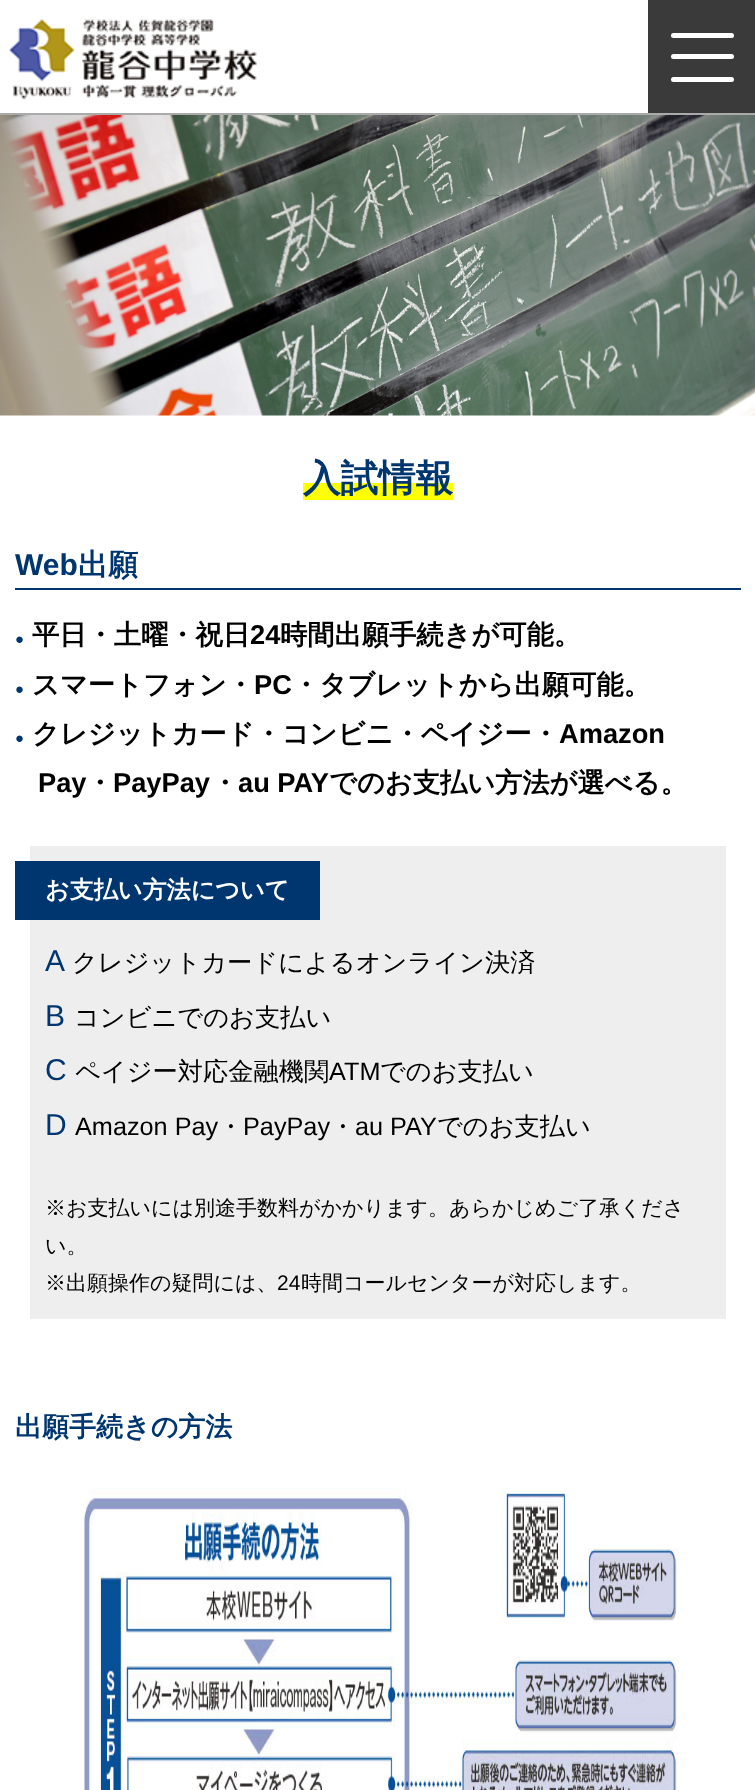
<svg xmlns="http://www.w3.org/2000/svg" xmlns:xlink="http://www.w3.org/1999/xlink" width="755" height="1790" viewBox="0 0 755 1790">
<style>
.cls-1{font:bold 37.5px WenQuanYi Zen Hei;fill:#003670}
.cls-2{font:bold 30px Liberation Sans;fill:#003670}
.cls-3{font:bold 30px WenQuanYi Zen Hei;fill:#003670}
.cls-4{font:bold 15px Liberation Sans;fill:#003670}
.cls-5{font:bold 27.25px WenQuanYi Zen Hei;fill:#000000}
.cls-6{font:bold 27.25px Liberation Sans;fill:#000000}
.cls-7{font:bold 24.1px WenQuanYi Zen Hei;fill:#ffffff}
.cls-8{font:30px Liberation Sans;fill:#003670}
.cls-9{font:500 25.25px WenQuanYi Zen Hei;fill:#000000}
.cls-10{font:25.25px Liberation Sans;fill:#000000}
.cls-11{font:500 21px WenQuanYi Zen Hei;fill:#000000}
.cls-12{font:21px Liberation Sans;fill:#000000}
.cls-13{font:bold 27px WenQuanYi Zen Hei;fill:#003670}
</style>
<rect width="100%" height="100%" fill="#ffffff"/>
<rect fill="#aaaaaa" x="0" y="113" width="755" height="2"/>
<image xlink:href="image0.png" x="8" y="19" width="270" height="81"/>
<rect fill="#3a3a3a" x="648" y="0" width="107" height="113"/>
<rect fill="#ffffff" x="671" y="33" width="63" height="5" rx="2.5"/>
<rect fill="#ffffff" x="671" y="54" width="63" height="5" rx="2.5"/>
<rect fill="#ffffff" x="671" y="77" width="63" height="5" rx="2.5"/>
<image xlink:href="image1.png" x="0" y="115" width="755" height="301"/>
<rect fill="#ffff00" x="303" y="483" width="150" height="17"/>
<rect fill="#003670" x="15" y="588" width="726" height="2"/>
<rect fill="#eeeeee" x="30" y="846" width="696" height="473"/>
<rect fill="#003670" x="15" y="861" width="305" height="59"/>
<image xlink:href="image2.png" x="83" y="1488" width="596" height="302"/>
<text class="cls-1" x="303" y="491">入試情報</text>
<text class="cls-2" x="15" y="575">Web</text>
<text class="cls-3" x="78" y="575">出願</text>
<text class="cls-4" x="15" y="644">●</text>
<text class="cls-5" x="32" y="644">平日・土曜・祝日</text>
<text class="cls-6" x="250" y="644">24</text>
<text class="cls-5" x="280" y="644">時間出願手続きが可能。</text>
<text class="cls-4" x="15" y="694">●</text>
<text class="cls-5" x="32" y="694">スマートフォン・</text>
<text class="cls-6" x="254" y="694">PC</text>
<text class="cls-5" x="292" y="694">・タブレットから出願可能。</text>
<text class="cls-4" x="15" y="743">●</text>
<text class="cls-5" x="32" y="743">クレジットカード・コンビニ・ペイジー・</text>
<text class="cls-6" x="559" y="743">Amazon</text>
<text class="cls-6" x="38" y="792">Pay</text>
<text class="cls-5" x="86" y="792">・</text>
<text class="cls-6" x="113" y="792">PayPay</text>
<text class="cls-5" x="211" y="792">・</text>
<text class="cls-6" x="238" y="792">au PAY</text>
<text class="cls-5" x="329" y="792">でのお支払い方法が選べる。</text>
<text class="cls-7" x="45" y="898">お支払い方法について</text>
<text class="cls-8" x="45" y="971">A</text>
<text class="cls-9" x="72" y="971">クレジットカードによるオンライン決済</text>
<text class="cls-8" x="45" y="1026">B</text>
<text class="cls-9" x="74" y="1026">コンビニでのお支払い</text>
<text class="cls-8" x="45" y="1080">C</text>
<text class="cls-9" x="75" y="1080">ペイジー対応金融機関</text>
<text class="cls-10" x="329" y="1080">ATM</text>
<text class="cls-9" x="380" y="1080">でのお支払い</text>
<text class="cls-8" x="45" y="1135">D</text>
<text class="cls-10" x="75" y="1135">Amazon Pay</text>
<text class="cls-9" x="218" y="1135">・</text>
<text class="cls-10" x="243" y="1135">PayPay</text>
<text class="cls-9" x="330" y="1135">・</text>
<text class="cls-10" x="355" y="1135">au PAY</text>
<text class="cls-9" x="437" y="1135">でのお支払い</text>
<text class="cls-11"><tspan x="45" y="1215">※お支払いには別途手数料がかかります。あらかじめご了承くださ</tspan><tspan x="45" y="1253">い。</tspan><tspan x="45" y="1290">※出願操作の疑問には、</tspan></text>
<text class="cls-12" x="277" y="1290">24</text>
<text class="cls-11" x="301" y="1290">時間コールセンターが対応します。</text>
<text class="cls-13" x="15" y="1436">出願手続きの方法</text>
</svg>
